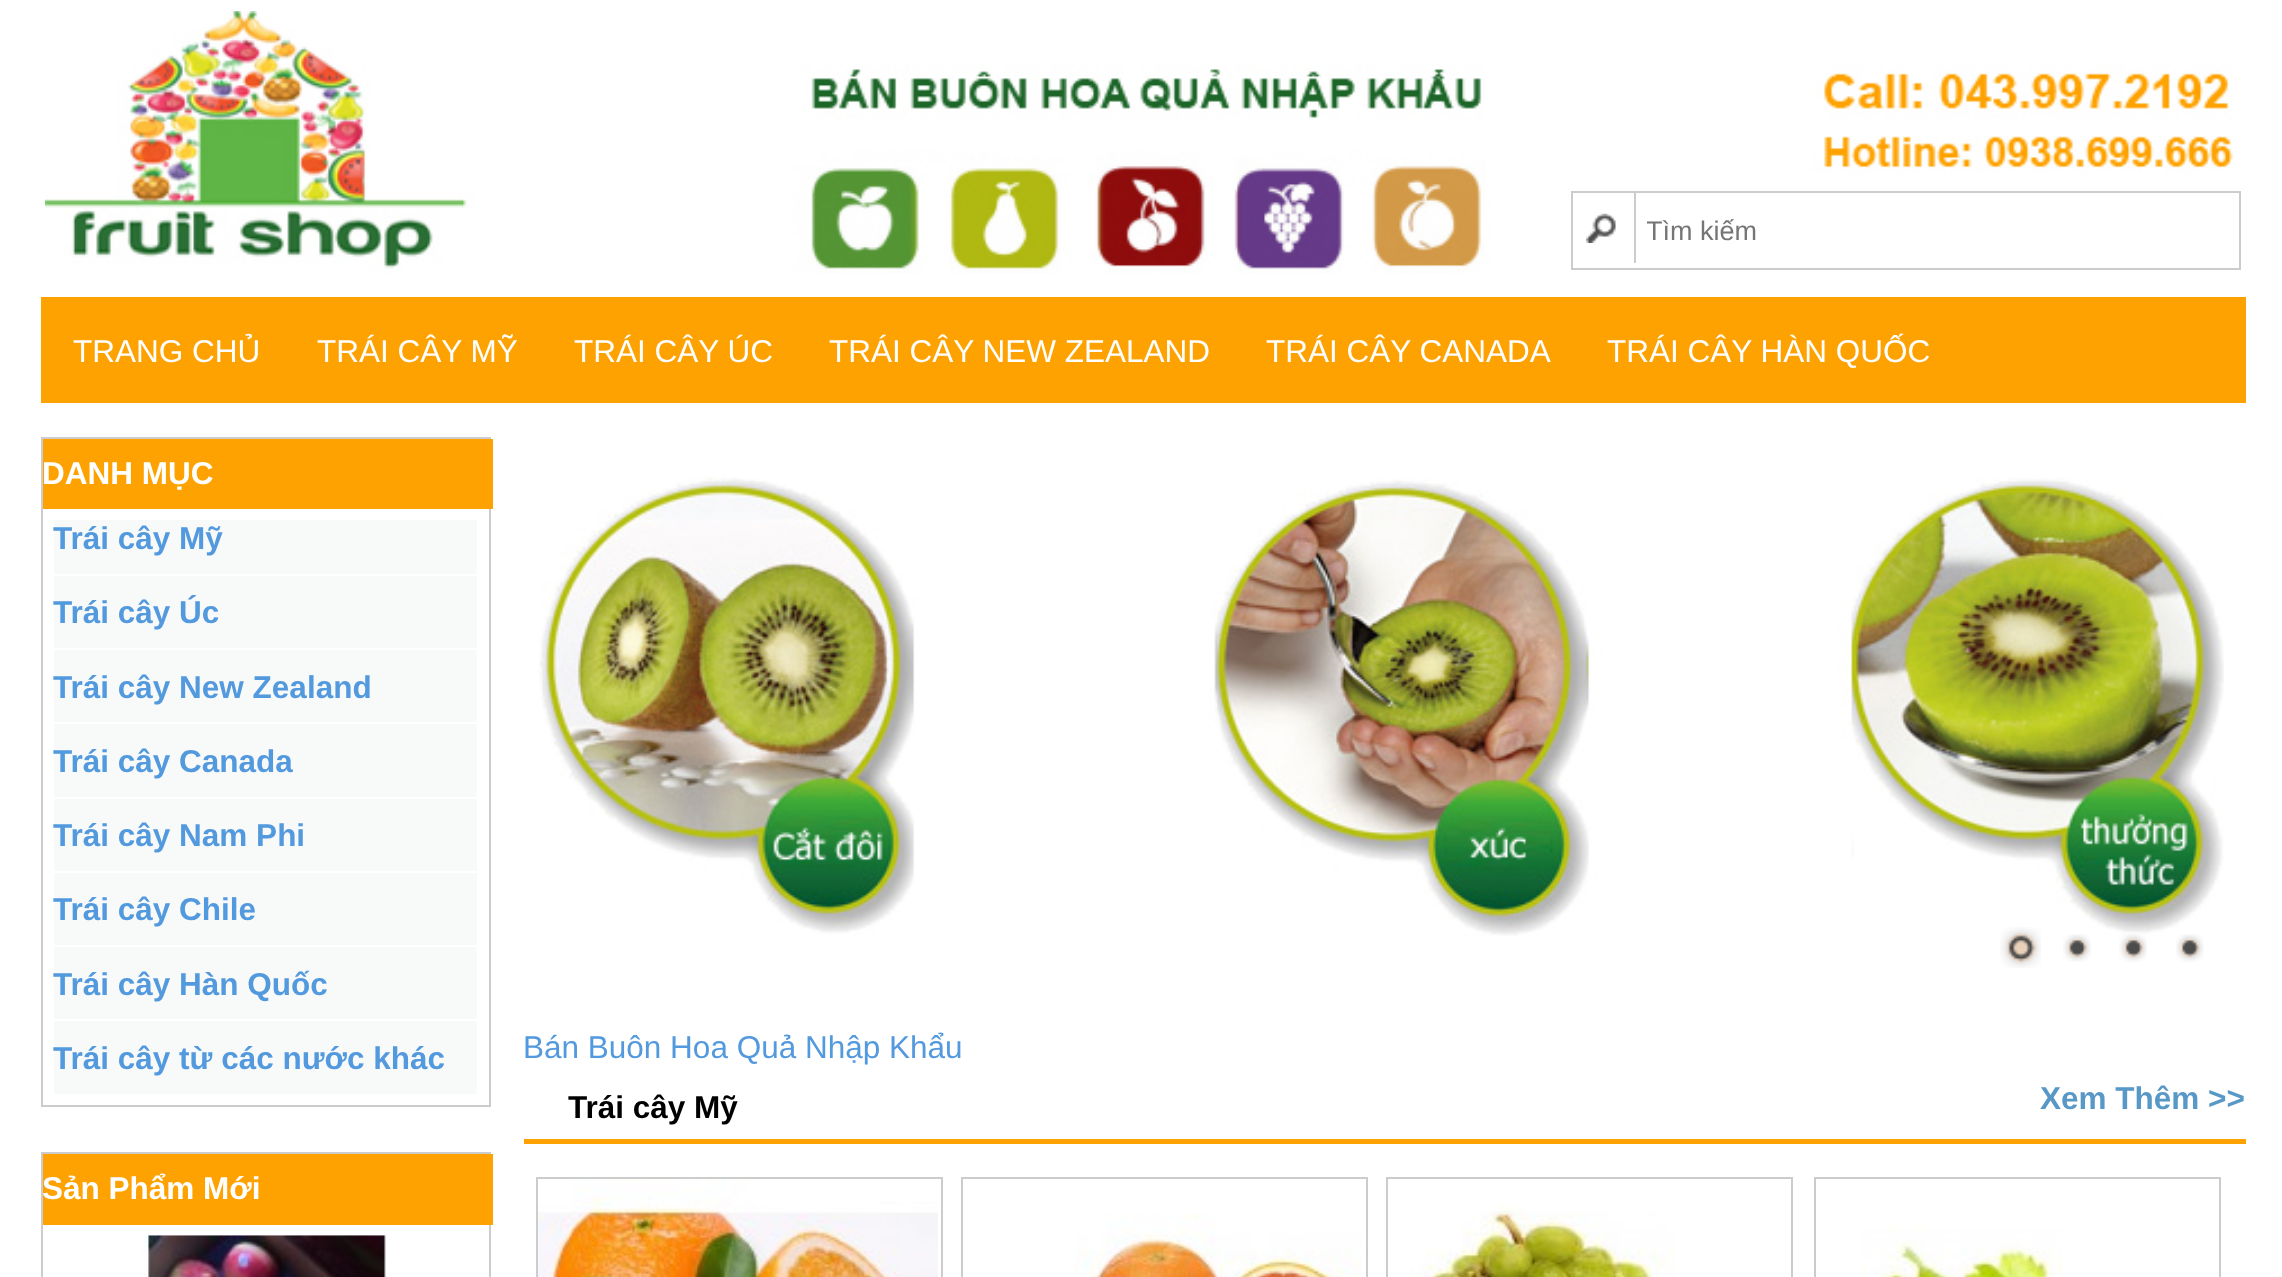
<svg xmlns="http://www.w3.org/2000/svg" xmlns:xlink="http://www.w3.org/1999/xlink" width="2282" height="1277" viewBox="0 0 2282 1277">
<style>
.cls-1{font:27px Liberation Sans;fill:#757575}
.cls-2{font:31.5px Liberation Sans;fill:#ffffff}
.cls-3{font:bold 31.5px Liberation Sans;fill:#ffffff}
.cls-4{font:bold 31.5px Liberation Sans;fill:#5299de}
.cls-5{font:31.5px Liberation Sans;fill:#5299de}
.cls-6{font:bold 31.5px Liberation Sans;fill:#000000}
.cls-7{font:bold 31.5px Liberation Sans;fill:#5898c7}
</style>
<defs>
<clipPath id="clip1"><rect x="1647" y="216" width="590" height="32"/></clipPath>
</defs>
<rect width="100%" height="100%" fill="#ffffff"/>
<image xlink:href="image0.png" x="45" y="11" width="2188" height="263"/>
<rect fill="none" stroke="#cccccc" stroke-width="2" x="1572" y="192" width="668" height="77"/>
<image xlink:href="image1.png" x="1586" y="213" width="30" height="30"/>
<rect fill="#cccccc" x="1634" y="191" width="2" height="72"/>
<rect fill="#fea201" x="41" y="297" width="2205" height="106"/>
<rect fill="none" stroke="#cccccc" stroke-width="2" x="42" y="438" width="448" height="668"/>
<rect fill="#fea201" x="43" y="439" width="450" height="70"/>
<rect fill="#f8f9f9" x="54" y="520" width="423" height="574"/>
<rect fill="#ffffff" x="54" y="574" width="423" height="2"/>
<rect fill="#ffffff" x="54" y="648" width="423" height="2"/>
<rect fill="#ffffff" x="54" y="722" width="423" height="2"/>
<rect fill="#ffffff" x="54" y="797" width="423" height="2"/>
<rect fill="#ffffff" x="54" y="871" width="423" height="2"/>
<rect fill="#ffffff" x="54" y="945" width="423" height="2"/>
<rect fill="#ffffff" x="54" y="1019" width="423" height="2"/>
<rect fill="none" stroke="#cccccc" stroke-width="2" x="42" y="1153" width="448" height="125"/>
<rect fill="#fea201" x="43" y="1154" width="450" height="71"/>
<image xlink:href="image2.png" x="143" y="1235" width="244" height="42"/>
<image xlink:href="image3.png" x="539" y="477" width="1685" height="459"/>
<image xlink:href="image4.png" x="2000" y="927" width="41" height="41"/>
<image xlink:href="image5.png" x="2063" y="934" width="28" height="28"/>
<image xlink:href="image6.png" x="2119" y="934" width="28" height="28"/>
<image xlink:href="image7.png" x="2176" y="934" width="28" height="28"/>
<rect fill="#fea201" x="524" y="1139" width="1722" height="5"/>
<rect fill="none" stroke="#cccccc" stroke-width="2" x="537" y="1178" width="405" height="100"/>
<image xlink:href="image8.png" x="538" y="1179" width="400" height="98"/>
<rect fill="none" stroke="#cccccc" stroke-width="2" x="962" y="1178" width="405" height="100"/>
<image xlink:href="image9.png" x="1075" y="1214" width="286" height="63"/>
<rect fill="none" stroke="#cccccc" stroke-width="2" x="1387" y="1178" width="405" height="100"/>
<image xlink:href="image10.png" x="1411" y="1204" width="264" height="73"/>
<rect fill="none" stroke="#cccccc" stroke-width="2" x="1815" y="1178" width="405" height="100"/>
<image xlink:href="image11.png" x="1861" y="1225" width="202" height="52"/>
<g clip-path="url(#clip1)">
<text class="cls-1" x="1646" y="240">Tìm kiếm</text>
</g>
<text class="cls-2" x="73" y="362">TRANG CHỦ</text>
<text class="cls-2" x="317" y="362">TRÁI CÂY MỸ</text>
<text class="cls-2" x="574" y="362">TRÁI CÂY ÚC</text>
<text class="cls-2" x="829" y="362">TRÁI CÂY NEW ZEALAND</text>
<text class="cls-2" x="1266" y="362">TRÁI CÂY CANADA</text>
<text class="cls-2" x="1607" y="362">TRÁI CÂY HÀN QUỐC</text>
<text class="cls-3" x="42" y="484">DANH MỤC</text>
<text class="cls-4" x="53" y="549">Trái cây Mỹ</text>
<text class="cls-4" x="53" y="623">Trái cây Úc</text>
<text class="cls-4" x="53" y="698">Trái cây New Zealand</text>
<text class="cls-4" x="53" y="772">Trái cây Canada</text>
<text class="cls-4" x="53" y="846">Trái cây Nam Phi</text>
<text class="cls-4" x="53" y="920">Trái cây Chile</text>
<text class="cls-4" x="53" y="995">Trái cây Hàn Quốc</text>
<text class="cls-4" x="53" y="1069">Trái cây từ các nước khác</text>
<text class="cls-3" x="42" y="1199">Sản Phẩm Mới</text>
<text class="cls-5" x="523" y="1058">Bán Buôn Hoa Quả Nhập Khẩu</text>
<text class="cls-6" x="568" y="1118">Trái cây Mỹ</text>
<text class="cls-7" x="2040" y="1109">Xem Thêm &gt;&gt;</text>
</svg>
